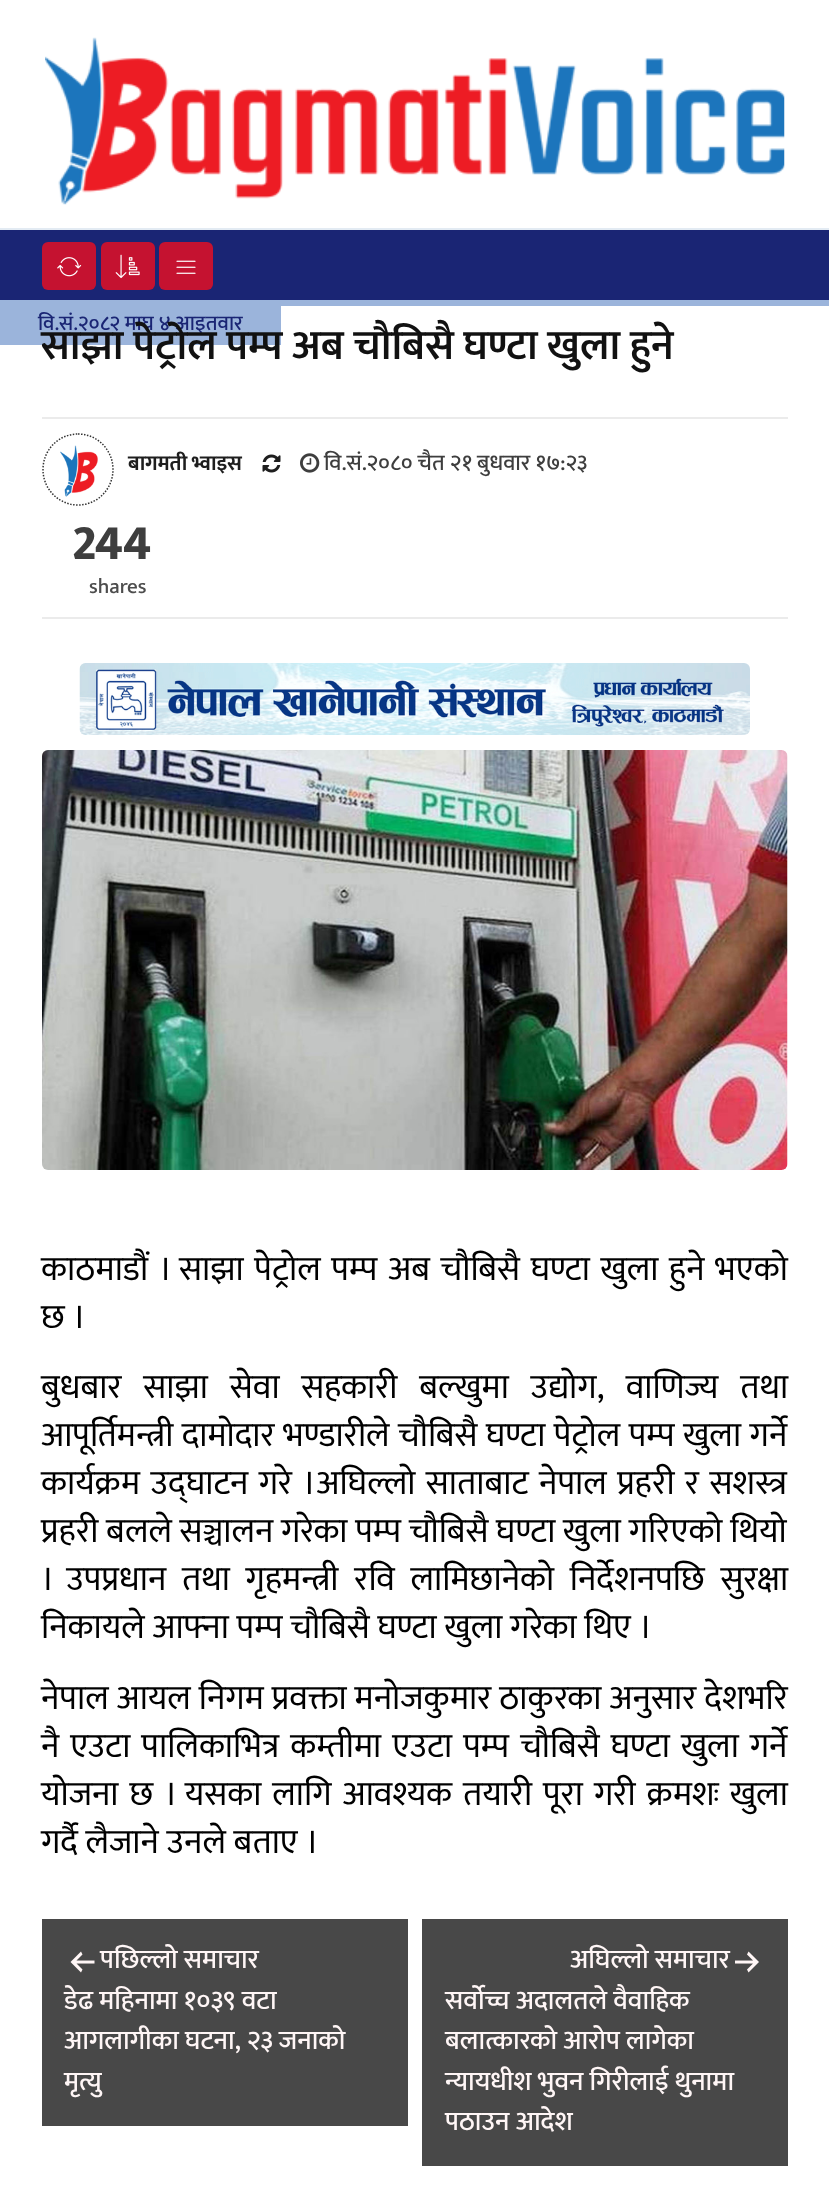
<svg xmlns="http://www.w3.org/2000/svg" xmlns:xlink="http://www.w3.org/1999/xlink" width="829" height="2211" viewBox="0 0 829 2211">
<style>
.cls-1{font:500 21px Mukta;fill:#1a2574}
.cls-2{font:600 42px Mukta;fill:#111111}
.cls-3{font:bold 21px Mukta;fill:#1e1e1e}
.cls-4{font:500 22.5px Mukta;fill:#3e3e3e}
.cls-5{font:800 50px Mukta;fill:#3e3e3e}
.cls-6{font:500 21px Mukta;fill:#4d4d4d}
.cls-7{font:34.5px Mukta;fill:#000000}
.cls-8{font:500 27px Mukta;fill:#fff6f6}
</style>
<rect width="100%" height="100%" fill="#ffffff"/>
<image xlink:href="image0.png" x="45" y="37" width="740" height="168"/>
<rect fill="#1a2574" x="0" y="230" width="829" height="70"/>
<rect fill="#e3ebf3" x="0" y="228" width="829" height="2"/>
<rect fill="#9bb4db" x="0" y="300" width="829" height="6"/>
<rect fill="#c51230" x="42" y="242" width="54" height="48" rx="6"/>
<image xlink:href="image1.png" x="57" y="257" width="25" height="20"/>
<rect fill="#c51230" x="101" y="242" width="54" height="48" rx="6"/>
<image xlink:href="image2.png" x="115" y="254" width="25" height="25"/>
<rect fill="#c51230" x="159" y="242" width="54" height="48" rx="6"/>
<image xlink:href="image3.png" x="176" y="260" width="20" height="14"/>
<rect fill="#9bb4db" x="0" y="306" width="281" height="39"/>
<rect fill="#ebebeb" x="42" y="417" width="746" height="2"/>
<rect fill="#ebebeb" x="42" y="617" width="746" height="2"/>
<path fill="none" stroke="#333333" stroke-width="1.5" stroke-dasharray="1.5 1.5" d="M78 434C97.5 434 113 450 113 469.5C113 489 97.5 505 78 505C58.5 505 43 489 43 469.5C43 450 58.5 434 78 434Z"/>
<image xlink:href="image4.png" x="60" y="445" width="38" height="52"/>
<image xlink:href="image5.png" x="262" y="454" width="19" height="19"/>
<image xlink:href="image6.png" x="300" y="453" width="20" height="20"/>
<image xlink:href="image7.png" x="79" y="663" width="671" height="72"/>
<image xlink:href="image8.png" x="42" y="750" width="746" height="420"/>
<rect fill="#484848" x="42" y="1919" width="366" height="207"/>
<image xlink:href="image9.png" x="70" y="1951" width="25" height="22"/>
<rect fill="#484848" x="422" y="1919" width="366" height="247"/>
<image xlink:href="image10.png" x="735" y="1951" width="24" height="22"/>
<text class="cls-1" x="38" y="330">वि.सं.२०८२ माघ ४ आइतवार</text>
<text class="cls-2" x="41" y="359">साझा पेट्रोल पम्प अब चौबिसै घण्टा खुला हुने</text>
<text class="cls-3" x="128" y="470">बागमती भ्वाइस</text>
<text class="cls-4" x="324" y="470">वि.सं.२०८० चैत २१ बुधवार १७:२३</text>
<text class="cls-5" x="72" y="559">244</text>
<text class="cls-6" x="89" y="593">shares</text>
<text class="cls-7"><tspan x="41" y="1280" word-spacing="2.9">काठमाडौं । साझा पेट्रोल पम्प अब चौबिसै घण्टा खुला हुने भएको</tspan><tspan x="41" y="1328">छ ।</tspan></text>
<text class="cls-7"><tspan x="41" y="1398" word-spacing="14">बुधबार साझा सेवा सहकारी बल्खुमा उद्योग, वाणिज्य तथा</tspan><tspan x="41" y="1446" word-spacing="0.75">आपूर्तिमन्त्री दामोदार भण्डारीले चौबिसै घण्टा पेट्रोल पम्प खुला गर्ने</tspan><tspan x="41" y="1494" word-spacing="2.75">कार्यक्रम उद्घाटन गरे ।अघिल्लो साताबाट नेपाल प्रहरी र सशस्त्र</tspan><tspan x="41" y="1542">प्रहरी बलले सञ्चालन गरेका पम्प चौबिसै घण्टा खुला गरिएको थियो</tspan><tspan x="41" y="1590" word-spacing="8">। उपप्रधान तथा गृहमन्त्री रवि लामिछानेको निर्देशनपछि सुरक्षा</tspan><tspan x="41" y="1638">निकायले आफ्ना पम्प चौबिसै घण्टा खुला गरेका थिए ।</tspan></text>
<text class="cls-7"><tspan x="41" y="1709" word-spacing="0.25">नेपाल आयल निगम प्रवक्ता मनोजकुमार ठाकुरका अनुसार देशभरि</tspan><tspan x="41" y="1757" word-spacing="3.25">नै एउटा पालिकाभित्र कम्तीमा एउटा पम्प चौबिसै घण्टा खुला गर्ने</tspan><tspan x="41" y="1805" word-spacing="3.25">योजना छ । यसका लागि आवश्यक तयारी पूरा गरी क्रमशः खुला</tspan><tspan x="41" y="1853">गर्दै लैजाने उनले बताए ।</tspan></text>
<text class="cls-8" x="100" y="1968">पछिल्लाे समाचार</text>
<text class="cls-8"><tspan x="64" y="2009">डेढ महिनामा १०३९ वटा</tspan><tspan x="64" y="2049">आगलागीका घटना, २३ जनाको</tspan><tspan x="64" y="2090">मृत्यु</tspan></text>
<text class="cls-8" x="570" y="1968">अघिल्लाे समाचार</text>
<text class="cls-8"><tspan x="445" y="2009">सर्वोच्च अदालतले वैवाहिक</tspan><tspan x="445" y="2049">बलात्कारको आरोप लागेका</tspan><tspan x="445" y="2090">न्यायधीश भुवन गिरीलाई थुनामा</tspan><tspan x="445" y="2130">पठाउन आदेश</tspan></text>
</svg>
